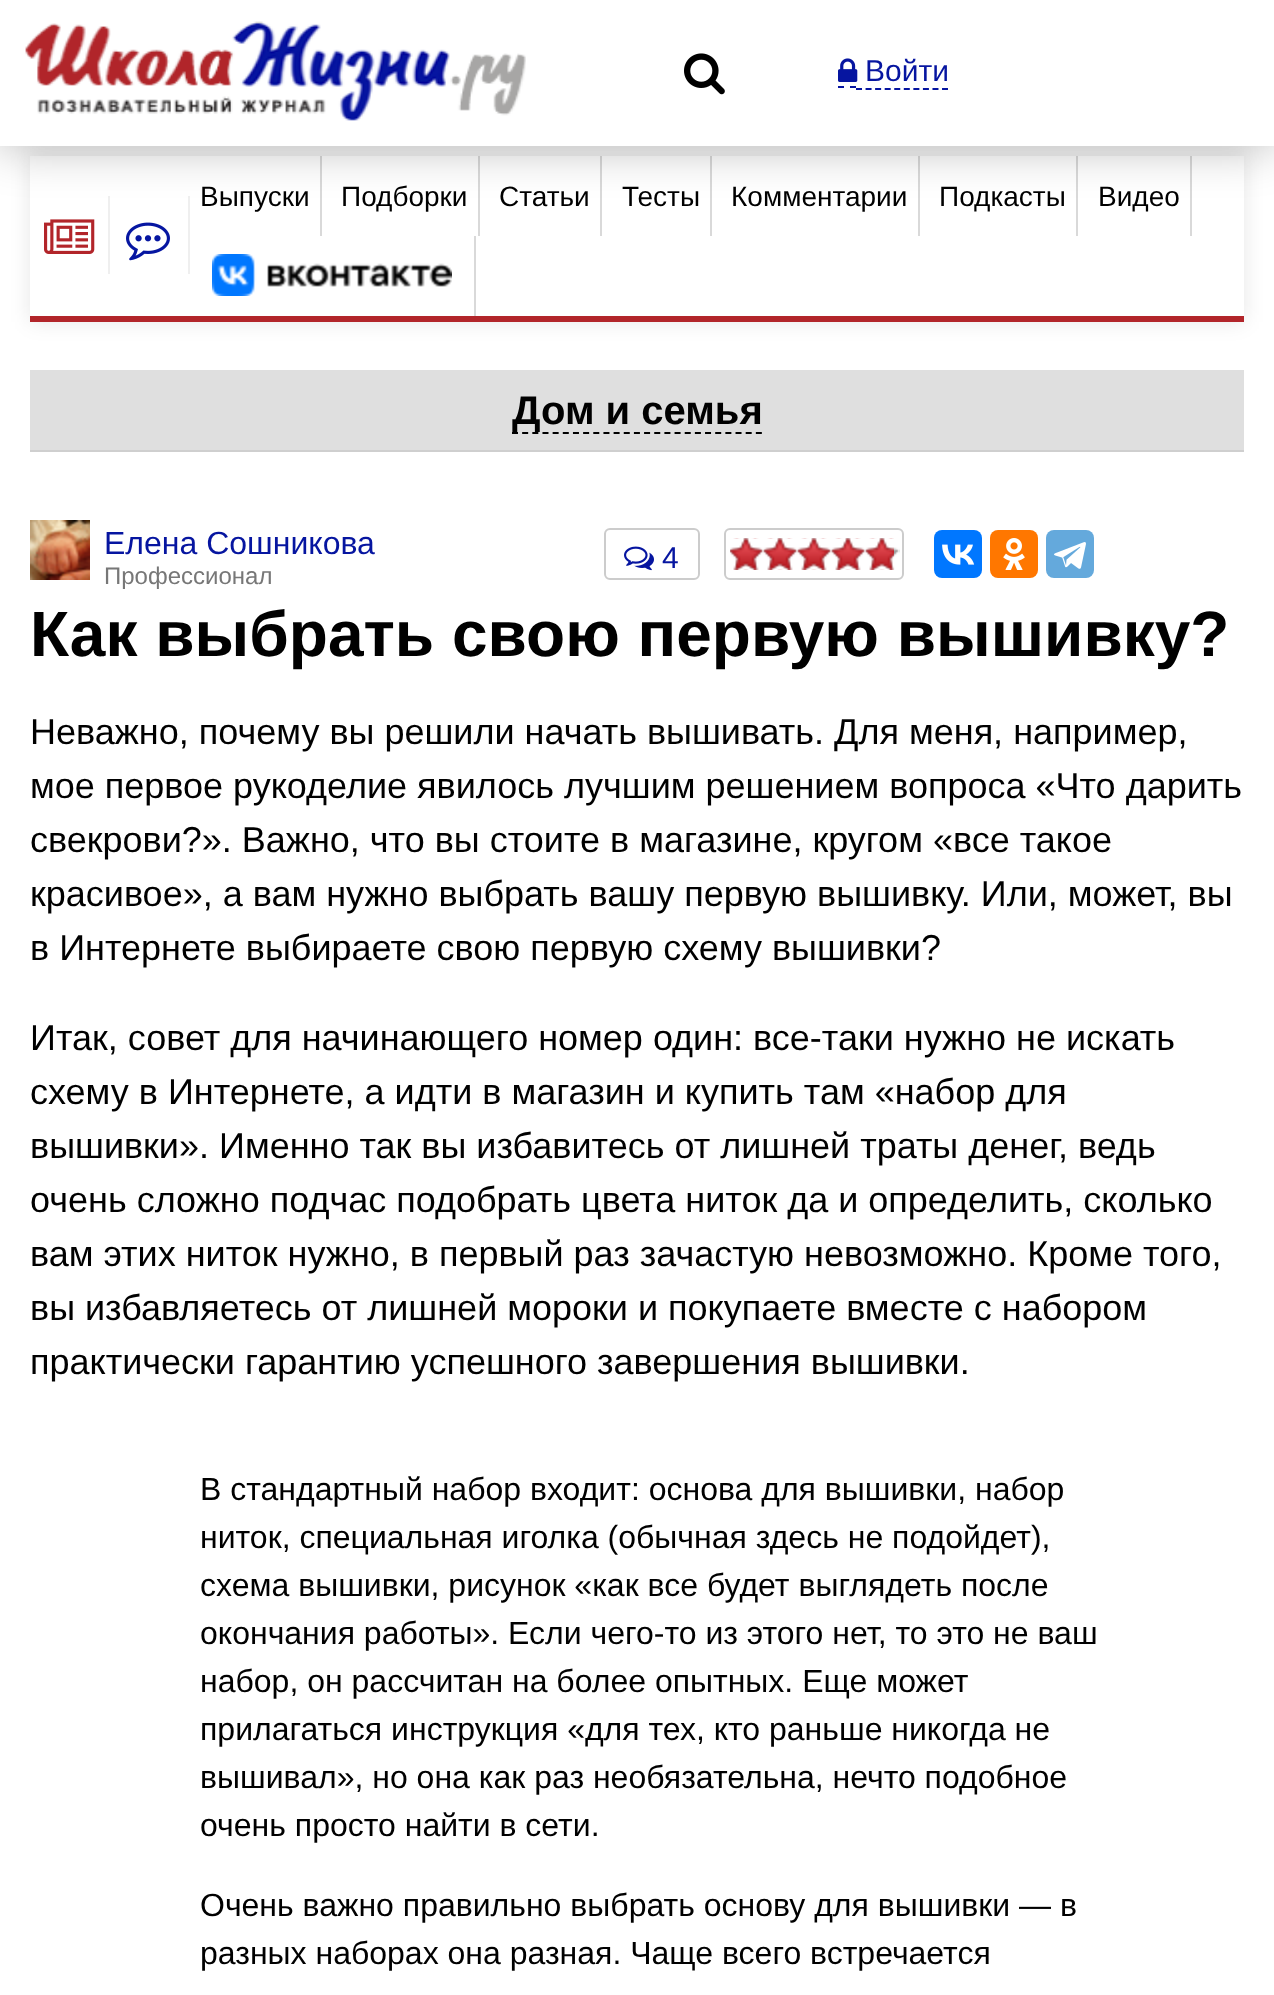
<svg xmlns="http://www.w3.org/2000/svg" xmlns:xlink="http://www.w3.org/1999/xlink" width="1274" height="1995" viewBox="0 0 1274 1995">
<style>
.cls-1{font:30px Liberation Sans;fill:#0615a0}
.cls-2{font:28px Liberation Sans;fill:#000000}
.cls-3{font:bold 40px Liberation Sans;fill:#000000}
.cls-4{font:32px Liberation Sans;fill:#0615a0}
.cls-5{font:24px Liberation Sans;fill:#777777}
.cls-6{font:bold 64px Liberation Sans;fill:#000000}
.cls-7{font:36px Liberation Sans;fill:#000000}
.cls-8{font:32px Liberation Sans;fill:#000000}
</style>
<defs>
<clipPath id="clip1"><path d="M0 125H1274V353H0ZM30 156H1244V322H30Z" clip-rule="evenodd"/></clipPath>
</defs>
<rect width="100%" height="100%" fill="#ffffff"/>
<g clip-path="url(#clip1)">
<rect fill="#000000" fill-opacity="0.1" filter="blur(10px)" x="30" y="156" width="1214" height="166"/>
</g>
<rect fill="#efefef" x="108" y="196" width="2" height="78"/>
<rect fill="#efefef" x="188" y="196" width="2" height="78"/>
<rect fill="#d9d9d9" x="320" y="156" width="2" height="80"/>
<rect fill="#d9d9d9" x="478" y="156" width="2" height="80"/>
<rect fill="#d9d9d9" x="600" y="156" width="2" height="80"/>
<rect fill="#d9d9d9" x="710" y="156" width="2" height="80"/>
<rect fill="#d9d9d9" x="918" y="156" width="2" height="80"/>
<rect fill="#d9d9d9" x="1076" y="156" width="2" height="80"/>
<rect fill="#d9d9d9" x="1190" y="156" width="2" height="80"/>
<rect fill="#000000" fill-opacity="0.3" filter="blur(24px)" x="0" y="0" width="1274" height="146"/>
<rect fill="#ffffff" x="0" y="0" width="1274" height="146"/>
<image xlink:href="image0.png" x="25" y="21" width="501" height="100"/>
<image xlink:href="image1.png" x="684" y="53" width="41" height="42"/>
<path fill="none" stroke="#0615a0" stroke-width="2" d="M838 87H844M850 87H856"/>
<path fill="none" stroke="#0615a0" stroke-width="2" stroke-dasharray="6 3.56" d="M856 89H948"/>
<image xlink:href="image2.png" x="838" y="58" width="20" height="24"/>
<rect fill="#b2252a" x="30" y="316" width="1214" height="6"/>
<image xlink:href="image3.png" x="44" y="219" width="51" height="35"/>
<image xlink:href="image4.png" x="126" y="222" width="44" height="39"/>
<rect fill="#d9d9d9" x="474" y="236" width="2" height="80"/>
<image xlink:href="image5.png" x="212" y="254" width="240" height="42"/>
<rect fill="#dfdfdf" x="30" y="370" width="1214" height="80"/>
<rect fill="#cfcfcf" x="30" y="450" width="1214" height="2"/>
<path fill="none" stroke="#000000" stroke-width="2" stroke-dasharray="6 4.16" d="M512 433H762"/>
<image xlink:href="image6.png" x="30" y="520" width="60" height="60"/>
<rect fill="none" stroke="#cccccc" stroke-width="2" x="605" y="529" width="94" height="50" rx="5"/>
<image xlink:href="image7.png" x="624" y="546" width="30" height="25"/>
<rect fill="none" stroke="#cccccc" stroke-width="2" x="725" y="529" width="178" height="50" rx="5"/>
<image xlink:href="image8.png" x="730" y="538" width="170" height="32"/>
<image xlink:href="image9.png" x="730" y="538" width="164" height="32"/>
<rect fill="#0077ff" x="934" y="530" width="48" height="48" rx="8"/>
<image xlink:href="image10.png" x="942" y="544" width="33" height="21"/>
<rect fill="#ff7700" x="990" y="530" width="48" height="48" rx="8"/>
<image xlink:href="image11.png" x="1003" y="538" width="22" height="32"/>
<rect fill="#64a9dc" x="1046" y="530" width="48" height="48" rx="8"/>
<image xlink:href="image12.png" x="1054" y="542" width="32" height="27"/>
<text class="cls-1" x="865" y="81">Войти</text>
<text class="cls-2" x="200" y="206">Выпуски</text>
<text class="cls-2" x="341" y="206">Подборки</text>
<text class="cls-2" x="499" y="206">Статьи</text>
<text class="cls-2" x="622" y="206">Тесты</text>
<text class="cls-2" x="731" y="206">Комментарии</text>
<text class="cls-2" x="939" y="206">Подкасты</text>
<text class="cls-2" x="1098" y="206">Видео</text>
<text class="cls-3" x="512" y="424">Дом и семья</text>
<text class="cls-4" x="104" y="554">Елена Сошникова</text>
<text class="cls-5" x="104" y="584">Профессионал</text>
<text class="cls-1" x="662" y="568">4</text>
<text class="cls-6" x="30" y="656">Как выбрать свою первую вышивку?</text>
<text class="cls-7"><tspan x="30" y="744">Неважно, почему вы решили начать вышивать. Для меня, например,</tspan><tspan x="30" y="798">мое первое рукоделие явилось лучшим решением вопроса «Что дарить</tspan><tspan x="30" y="852">свекрови?». Важно, что вы стоите в магазине, кругом «все такое</tspan><tspan x="30" y="906">красивое», а вам нужно выбрать вашу первую вышивку. Или, может, вы</tspan><tspan x="30" y="960">в Интернете выбираете свою первую схему вышивки?</tspan></text>
<text class="cls-7"><tspan x="30" y="1050">Итак, совет для начинающего номер один: все-таки нужно не искать</tspan><tspan x="30" y="1104">схему в Интернете, а идти в магазин и купить там «набор для</tspan><tspan x="30" y="1158">вышивки». Именно так вы избавитесь от лишней траты денег, ведь</tspan><tspan x="30" y="1212">очень сложно подчас подобрать цвета ниток да и определить, сколько</tspan><tspan x="30" y="1266">вам этих ниток нужно, в первый раз зачастую невозможно. Кроме того,</tspan><tspan x="30" y="1320">вы избавляетесь от лишней мороки и покупаете вместе с набором</tspan><tspan x="30" y="1374">практически гарантию успешного завершения вышивки.</tspan></text>
<text class="cls-8"><tspan x="200" y="1500">В стандартный набор входит: основа для вышивки, набор</tspan><tspan x="200" y="1548">ниток, специальная иголка (обычная здесь не подойдет),</tspan><tspan x="200" y="1596">схема вышивки, рисунок «как все будет выглядеть после</tspan><tspan x="200" y="1644">окончания работы». Если чего-то из этого нет, то это не ваш</tspan><tspan x="200" y="1692">набор, он рассчитан на более опытных. Еще может</tspan><tspan x="200" y="1740">прилагаться инструкция «для тех, кто раньше никогда не</tspan><tspan x="200" y="1788">вышивал», но она как раз необязательна, нечто подобное</tspan><tspan x="200" y="1836">очень просто найти в сети.</tspan></text>
<text class="cls-8"><tspan x="200" y="1916">Очень важно правильно выбрать основу для вышивки — в</tspan><tspan x="200" y="1964">разных наборах она разная. Чаще всего встречается</tspan></text>
</svg>
